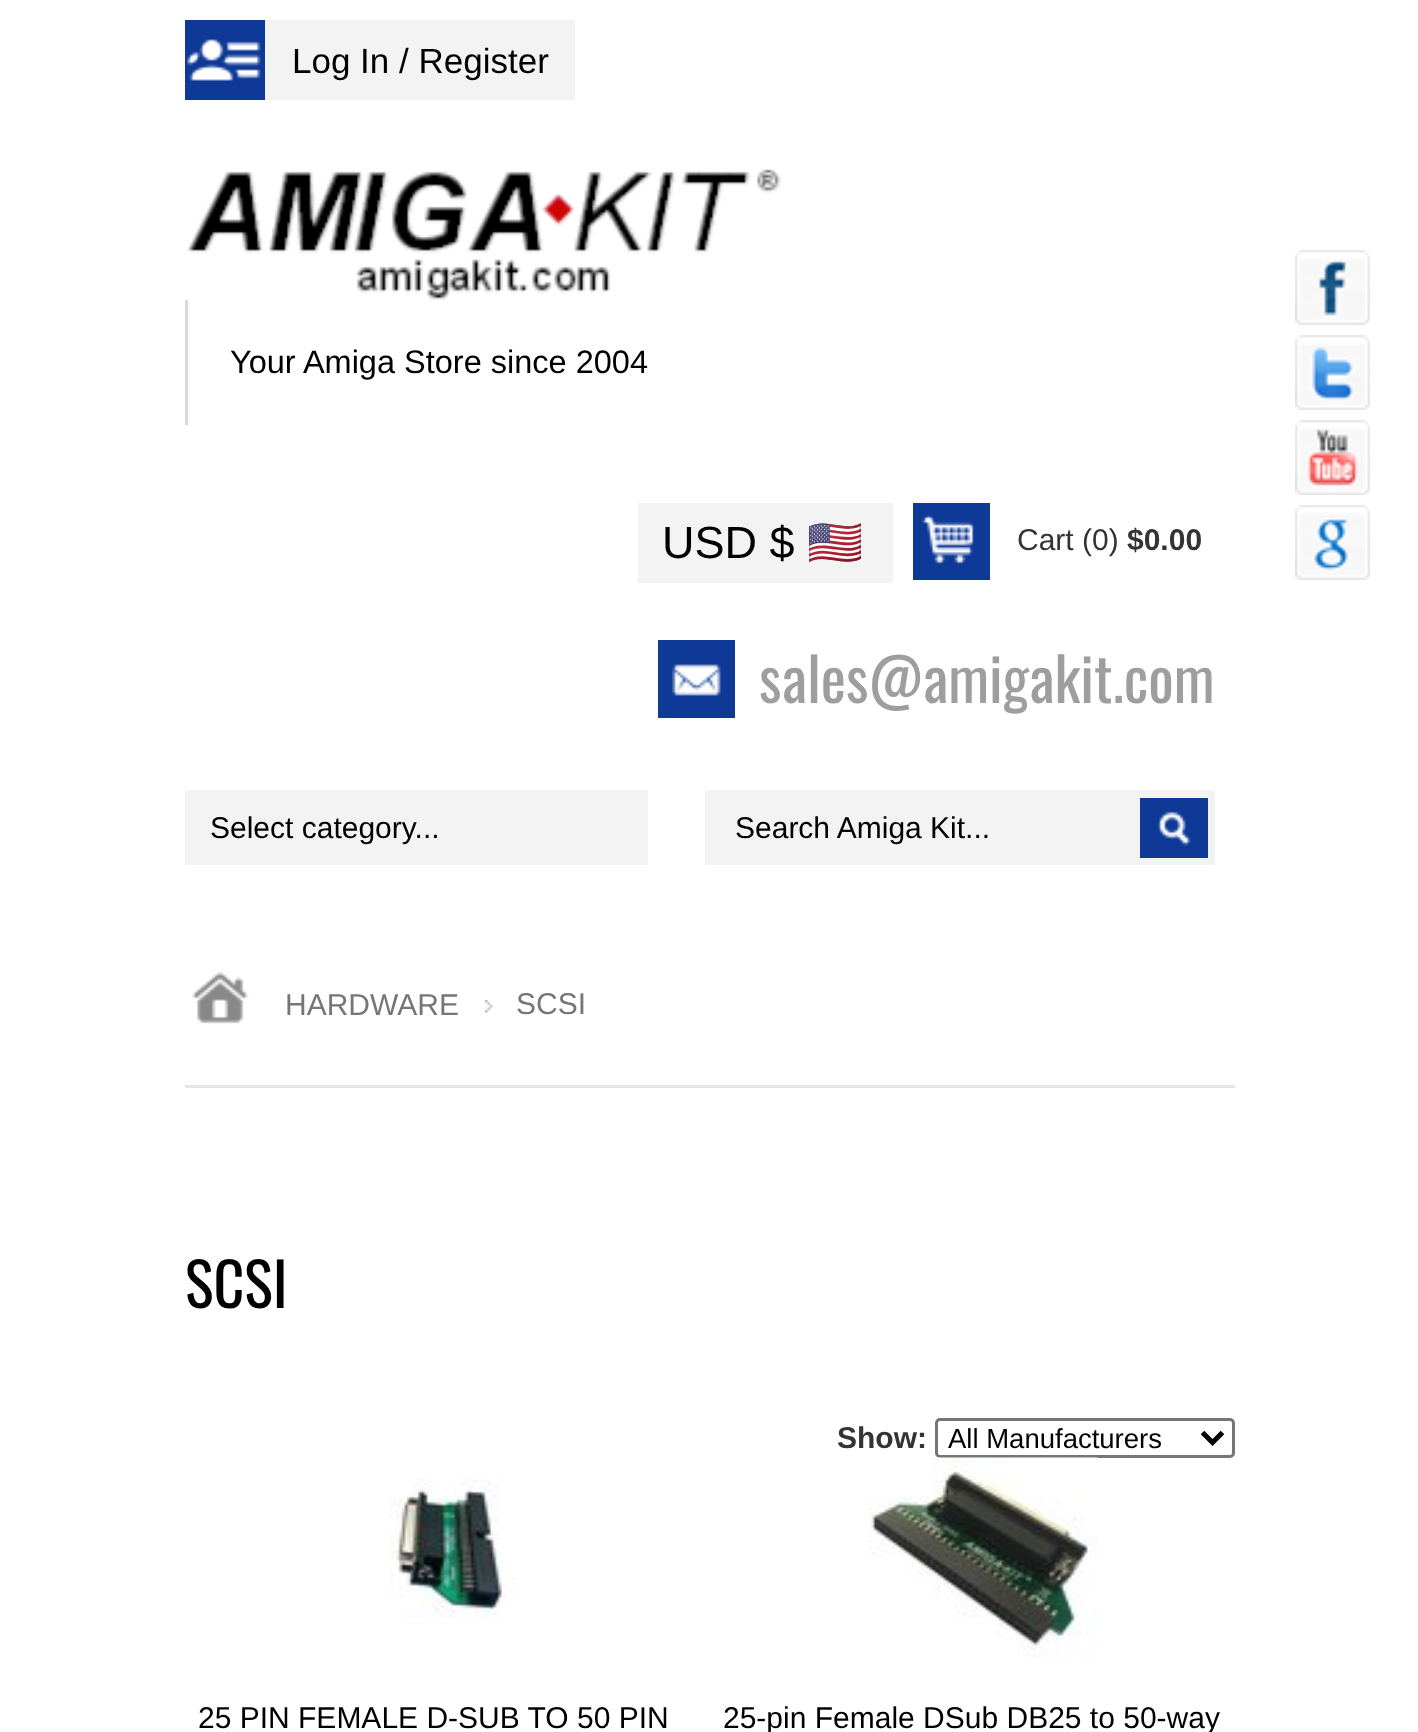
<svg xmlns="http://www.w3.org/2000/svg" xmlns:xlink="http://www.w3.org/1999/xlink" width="1418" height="1732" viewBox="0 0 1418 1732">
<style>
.cls-1{font:35px Liberation Sans;fill:#000000}
.cls-2{font:32.5px Liberation Sans;fill:#000000}
.cls-3{font:45px Liberation Sans;fill:#000000}
.cls-4{font:45px Noto Color Emoji;fill:#000000}
.cls-5{font:30px Liberation Sans;fill:#343434}
.cls-6{font:bold 30px Liberation Sans;fill:#343434}
.cls-7{font:60px Oswald;fill:#9e9e9e}
.cls-8{font:30px Liberation Sans;fill:#000000}
.cls-9{font:30px Liberation Sans;fill:#767676}
.cls-10{font:60px Oswald;fill:#000000}
.cls-11{font:27.5px Liberation Sans;fill:#000000}
</style>
<defs>
<clipPath id="clip1"><rect x="663" y="518" width="205" height="50"/></clipPath>
</defs>
<rect width="100%" height="100%" fill="#ffffff"/>
<rect fill="#0f3996" x="185" y="20" width="80" height="80"/>
<image xlink:href="image0.png" x="186" y="39" width="75" height="42"/>
<rect fill="#f3f3f3" x="265" y="20" width="310" height="80"/>
<image xlink:href="image1.png" x="187" y="169" width="594" height="131"/>
<rect fill="#d8dadc" x="185" y="300" width="3" height="125"/>
<rect fill="#f3f3f3" x="638" y="503" width="255" height="80"/>
<rect fill="#0f3996" x="913" y="503" width="77" height="77"/>
<image xlink:href="image2.png" x="922" y="514" width="52" height="50"/>
<rect fill="#0f3996" x="658" y="640" width="77" height="78"/>
<image xlink:href="image3.png" x="672" y="664" width="49" height="32"/>
<image xlink:href="image4.png" x="1295" y="250" width="75" height="75"/>
<image xlink:href="image5.png" x="1295" y="335" width="75" height="75"/>
<image xlink:href="image6.png" x="1295" y="420" width="75" height="75"/>
<image xlink:href="image7.png" x="1295" y="505" width="75" height="75"/>
<rect fill="#f3f3f3" x="185" y="790" width="463" height="75"/>
<rect fill="#f3f3f3" x="705" y="790" width="510" height="75"/>
<rect fill="#0f3996" x="1140" y="798" width="68" height="60"/>
<image xlink:href="image8.png" x="1157" y="811" width="34" height="35"/>
<rect fill="#e5e5e5" x="185" y="1085" width="1050" height="3"/>
<image xlink:href="image9.png" x="192" y="972" width="57" height="52"/>
<image xlink:href="image10.png" x="485" y="1000" width="8" height="13"/>
<rect fill="none" stroke="#767676" stroke-width="3" x="936.5" y="1419.5" width="297" height="37" rx="3.5"/>
<path fill="none" stroke="#000000" stroke-width="5" d="M1202.5 1432.5L1212.5 1442.5L1222.5 1432.5"/>
<image xlink:href="image11.png" x="389" y="1478" width="128" height="141"/>
<image xlink:href="image12.png" x="868" y="1457" width="230" height="201"/>
<text class="cls-1" x="292" y="73">Log In / Register</text>
<text class="cls-2" x="230" y="373">Your Amiga Store since 2004</text>
<text class="cls-3" x="662" y="558">USD $</text>
<g clip-path="url(#clip1)">
<text class="cls-4" x="807" y="558">🇺🇸</text>
</g>
<text class="cls-5" x="1017" y="550">Cart (0)</text>
<text class="cls-6" x="1127" y="550">$0.00</text>
<text class="cls-7" x="759" y="703">sales@amigakit.com</text>
<text class="cls-8" x="210" y="838">Select category...</text>
<text class="cls-8" x="735" y="838">Search Amiga Kit...</text>
<text class="cls-9" x="285" y="1015">HARDWARE</text>
<text class="cls-9" x="516" y="1014">SCSI</text>
<text class="cls-10" x="185" y="1308">SCSI</text>
<text class="cls-6" x="837" y="1448">Show:</text>
<text class="cls-11" x="948" y="1448">All Manufacturers</text>
<text class="cls-8" x="198" y="1728">25 PIN FEMALE D-SUB TO 50 PIN</text>
<text class="cls-8" x="723" y="1728">25-pin Female DSub DB25 to 50-way</text>
</svg>
